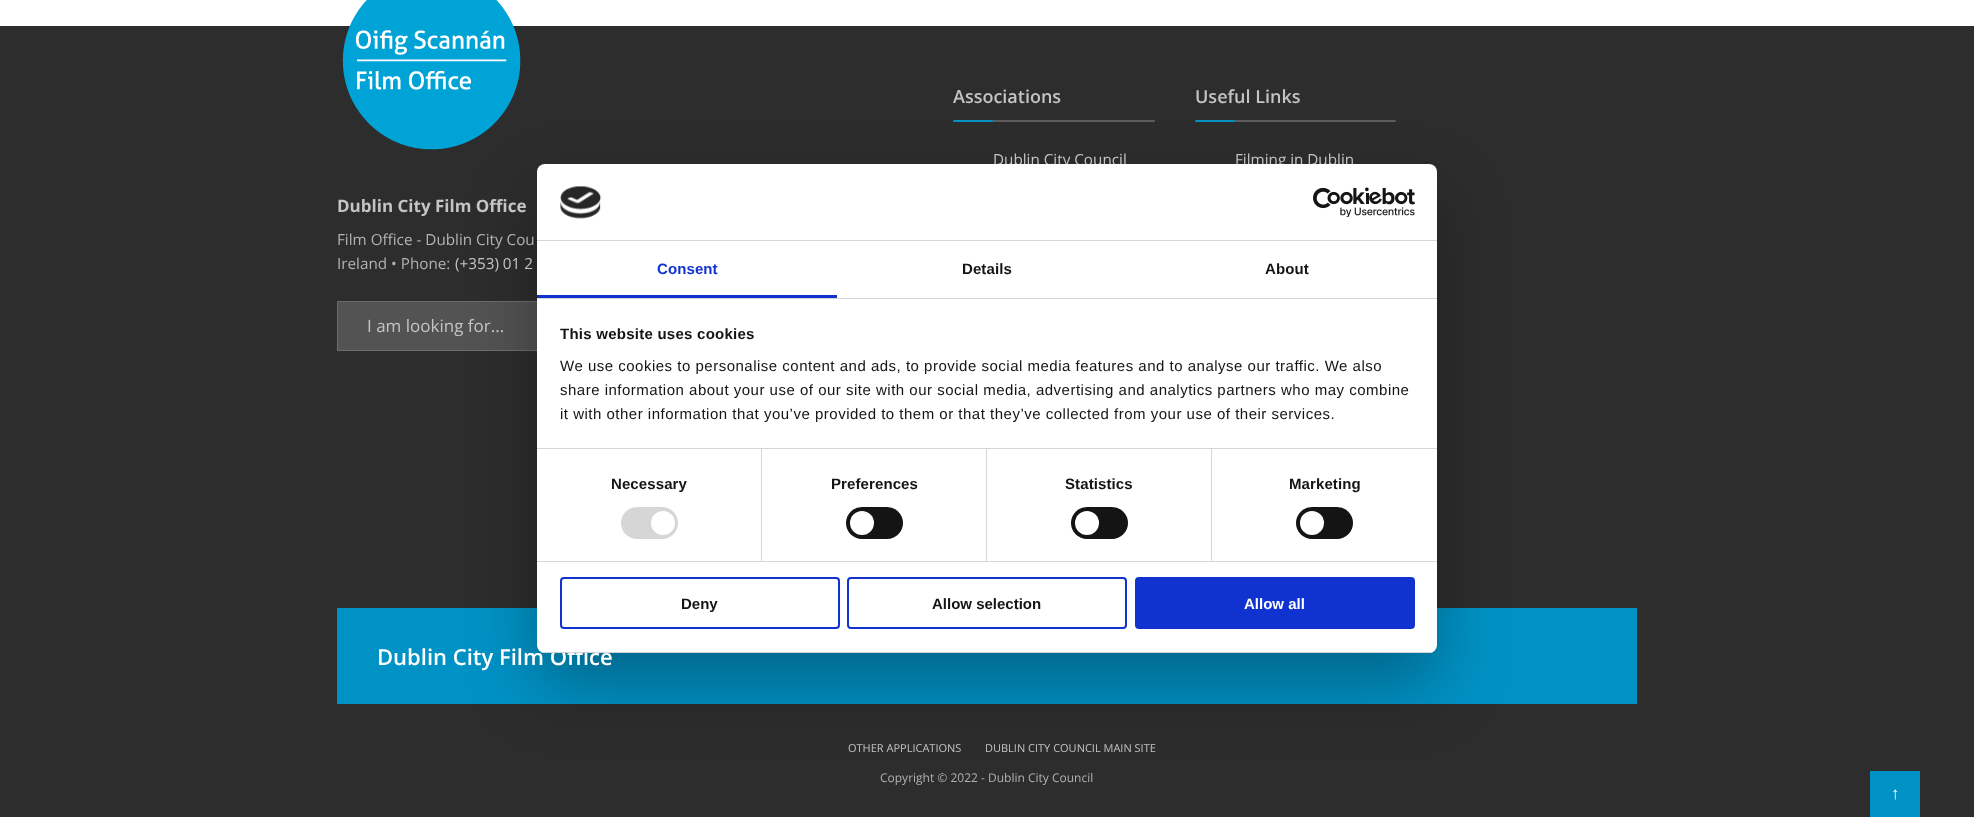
<svg xmlns="http://www.w3.org/2000/svg" xmlns:xlink="http://www.w3.org/1999/xlink" width="1974" height="817" viewBox="0 0 1974 817">
<style>
.cls-1{font:600 18px Open Sans;fill:#c4c4c4}
.cls-2{font:15.25px Open Sans;fill:#c4c4c4}
.cls-3{font:bold 17px Open Sans;fill:#c4c4c4}
.cls-4{font:15.25px Open Sans;fill:#b2b2b2}
.cls-5{font:17px Open Sans;fill:#c4c4c4}
.cls-6{font:600 22px Open Sans;fill:#ffffff}
.cls-7{font:11px Open Sans;fill:#c4c4c4}
.cls-8{font:12px Open Sans;fill:#b2b2b2}
.cls-9{font:17px Liberation Serif;fill:#ffffff}
.cls-10{font:bold 15px Liberation Sans;letter-spacing:0.1px;fill:#1032cf}
.cls-11{font:bold 15px Liberation Sans;letter-spacing:0.1px;fill:#141414}
.cls-12{font:bold 15px Liberation Sans;letter-spacing:0.25px;fill:#141414}
.cls-13{font:15px Liberation Sans;letter-spacing:0.5px;fill:#141414}
.cls-14{font:bold 15px Liberation Sans;fill:#141414}
.cls-15{font:bold 15px Liberation Sans;fill:#ffffff}
</style>
<defs>
<clipPath id="clip1"><rect x="537" y="164" width="900" height="489" rx="8"/></clipPath>
</defs>
<rect width="100%" height="100%" fill="#ffffff"/>
<rect fill="#2d2d2d" x="0" y="26" width="1974" height="791"/>
<rect fill="#5d5d5d" x="991" y="120" width="164" height="2" rx="1"/>
<rect fill="#0092c5" x="953" y="120" width="40" height="2" rx="1"/>
<rect fill="#5d5d5d" x="1233" y="120" width="163" height="2" rx="1"/>
<rect fill="#0092c5" x="1195" y="120" width="40" height="2" rx="1"/>
<image xlink:href="image0.png" x="342" y="0" width="179" height="150"/>
<rect fill="#535353" x="338" y="302" width="199" height="48"/>
<rect fill="none" stroke="#6d6d6d" x="337.5" y="301.5" width="575" height="49"/>
<rect fill="#0092c5" x="337" y="608" width="1300" height="96"/>
<rect fill="#0092c5" x="1870" y="771" width="50" height="46"/>
<rect fill="#000000" fill-opacity="0.3" filter="blur(34px)" x="537" y="196" width="900" height="489" rx="8"/>
<text class="cls-1" x="953" y="103">Associations</text>
<text class="cls-2" x="993" y="165">Dublin City Council</text>
<text class="cls-1" x="1195" y="103">Useful Links</text>
<text class="cls-2" x="1235" y="165">Filming in Dublin</text>
<text class="cls-3" x="337" y="212">Dublin City Film Office</text>
<text class="cls-4"><tspan x="337" y="245">Film Office - Dublin City Cou</tspan><tspan x="337" y="269">Ireland • Phone:</tspan></text>
<text class="cls-2" x="455" y="269">(+353) 01 2</text>
<text class="cls-5" x="367" y="332">I am looking for...</text>
<text class="cls-6" x="377" y="665">Dublin City Film Office</text>
<text class="cls-7" x="848" y="752">OTHER APPLICATIONS</text>
<text class="cls-7" x="985" y="752">DUBLIN CITY COUNCIL MAIN SITE</text>
<text class="cls-8" x="880" y="782">Copyright © 2022 - Dublin City Council</text>
<text class="cls-9" x="1891" y="799">↑</text>
<rect fill="#ffffff" x="537" y="164" width="900" height="489" rx="8"/>
<rect fill="#d6d6d6" x="537" y="240" width="900" height="1"/>
<image xlink:href="image1.png" x="560" y="186" width="42" height="33"/>
<image xlink:href="image2.png" x="1313" y="187" width="102" height="30"/>
<rect fill="#d6d6d6" x="537" y="298" width="900" height="1"/>
<rect fill="#1032cf" x="537" y="295" width="300" height="3"/>
<text class="cls-10" x="657" y="274">Consent</text>
<text class="cls-11" x="962" y="274">Details</text>
<text class="cls-11" x="1265" y="274">About</text>
<rect fill="#d6d6d6" x="537" y="448" width="900" height="1"/>
<text class="cls-12" x="560" y="339">This website uses cookies</text>
<text class="cls-13"><tspan x="560" y="371">We use cookies to personalise content and ads, to provide social media features and to analyse our traffic. We also</tspan><tspan x="560" y="395">share information about your use of our site with our social media, advertising and analytics partners who may combine</tspan><tspan x="560" y="419">it with other information that you’ve provided to them or that they’ve collected from your use of their services.</tspan></text>
<rect fill="#d6d6d6" x="537" y="561" width="900" height="1"/>
<rect fill="#d6d6d6" x="761" y="449" width="1" height="112"/>
<text class="cls-11" x="611" y="489">Necessary</text>
<rect fill="#d6d6d6" x="621" y="507" width="57" height="32" rx="16"/>
<circle fill="#ffffff" cx="663" cy="523" r="12"/>
<rect fill="#d6d6d6" x="986" y="449" width="1" height="112"/>
<text class="cls-11" x="831" y="489">Preferences</text>
<rect fill="#141414" x="846" y="507" width="57" height="32" rx="16"/>
<circle fill="#ffffff" cx="862" cy="523" r="12"/>
<rect fill="#d6d6d6" x="1211" y="449" width="1" height="112"/>
<text class="cls-11" x="1065" y="489">Statistics</text>
<rect fill="#141414" x="1071" y="507" width="57" height="32" rx="16"/>
<circle fill="#ffffff" cx="1087" cy="523" r="12"/>
<text class="cls-11" x="1289" y="489">Marketing</text>
<rect fill="#141414" x="1296" y="507" width="57" height="32" rx="16"/>
<circle fill="#ffffff" cx="1312" cy="523" r="12"/>
<g clip-path="url(#clip1)">
<rect fill="#d6d6d6" x="537" y="652" width="900" height="1"/>
</g>
<rect fill="none" stroke="#1032cf" stroke-width="2" x="561" y="578" width="278" height="50" rx="3"/>
<text class="cls-14" x="681" y="609">Deny</text>
<rect fill="none" stroke="#1032cf" stroke-width="2" x="848" y="578" width="278" height="50" rx="3"/>
<text class="cls-14" x="932" y="609">Allow selection</text>
<rect fill="#1032cf" stroke="#1032cf" stroke-width="2" x="1136" y="578" width="278" height="50" rx="3"/>
<text class="cls-15" x="1244" y="609">Allow all</text>
</svg>
